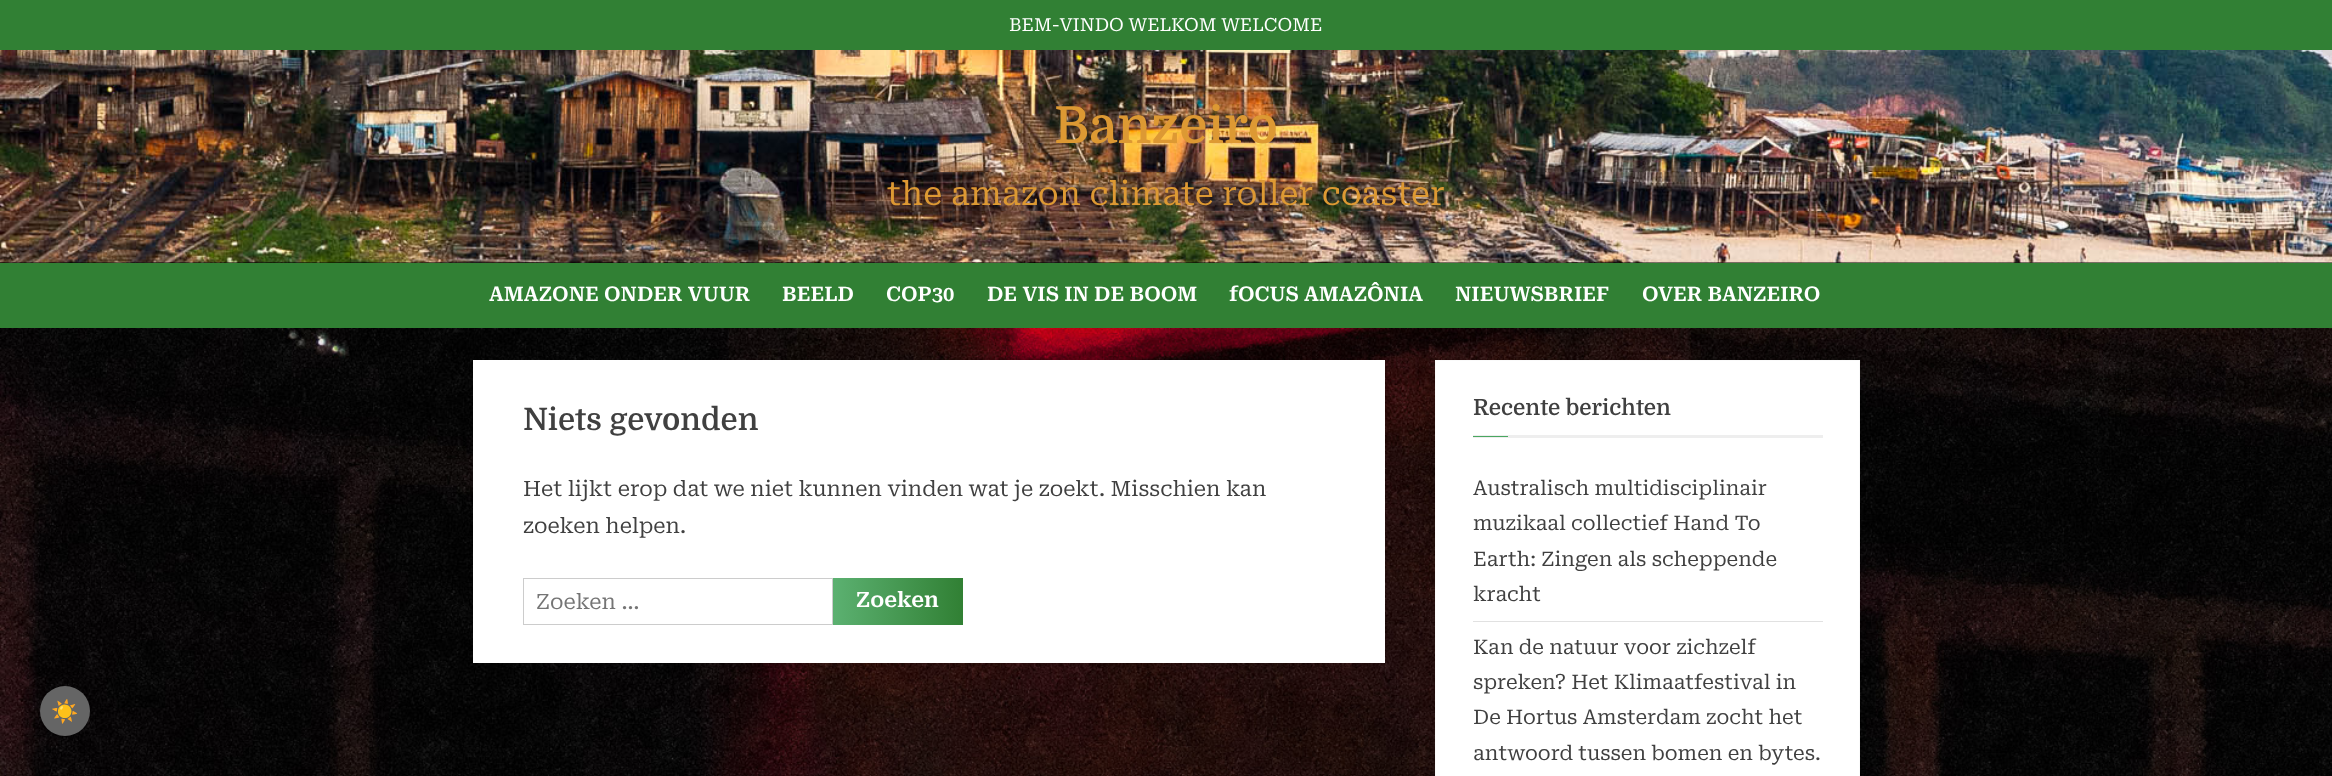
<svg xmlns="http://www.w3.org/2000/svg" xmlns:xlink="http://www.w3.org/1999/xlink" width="2332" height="776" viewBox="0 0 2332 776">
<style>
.cls-1{font:bold 22px Noto Color Emoji;fill:#eeeeee}
.cls-2{font:18.1px Roboto Serif;fill:#ffffff}
.cls-3{font:600 51px Domine;fill:#dd9933}
.cls-4{font:32.9px Roboto Serif;fill:#dd9933}
.cls-5{font:600 20.2px Roboto Serif;fill:#ffffff}
.cls-6{font:600 31px Domine;fill:#404040}
.cls-7{font:21.25px Roboto Serif;fill:#404040}
.cls-8{font:21.25px Roboto Serif;fill:#757575}
.cls-9{font:600 21.25px Roboto Serif;fill:#ffffff}
.cls-10{font:600 22.25px Domine;fill:#404040}
.cls-11{font:20.2px Roboto Serif;fill:#404040}
</style>
<defs>
<linearGradient id="g1" gradientUnits="userSpaceOnUse" x1="585" y1="601" x2="835" y2="601"><stop offset="0" stop-color="#5bb070"/><stop offset="0.51" stop-color="#318034"/><stop offset="1" stop-color="#5bb070"/></linearGradient>
<linearGradient id="g2" gradientUnits="userSpaceOnUse" x1="835" y1="601" x2="1085" y2="601"><stop offset="0" stop-color="#5bb070"/><stop offset="0.51" stop-color="#318034"/><stop offset="1" stop-color="#5bb070"/></linearGradient>
</defs>
<rect width="100%" height="100%" fill="#ffffff"/>
<image xlink:href="image0.png" x="0" y="328" width="2332" height="448"/>
<circle fill="#656565" cx="65" cy="711" r="25"/>
<rect fill="#318034" x="0" y="0" width="2332" height="50"/>
<rect fill="#000000" x="0" y="262" width="2332" height="1"/>
<image xlink:href="image1.png" x="0" y="50" width="2332" height="213"/>
<rect fill="#318034" x="0" y="263" width="2332" height="65"/>
<rect fill="#ffffff" x="473" y="360" width="912" height="303"/>
<rect fill="none" stroke="#cccccc" x="523.5" y="578.5" width="309" height="46"/>
<rect fill="url(#g1)" x="833" y="578" width="2" height="47"/>
<rect fill="url(#g2)" x="835" y="578" width="128" height="47"/>
<rect fill="#ffffff" stroke="#fafafa" x="1435.5" y="360.5" width="424" height="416"/>
<rect fill="#eeeeee" x="1473" y="435" width="350" height="3"/>
<rect fill="#49a760" x="1473" y="436" width="35" height="1"/>
<rect fill="#e1e1e1" x="1473" y="621" width="350" height="1"/>
<text class="cls-1" x="51" y="719">☀️</text>
<text class="cls-2" x="1009" y="31">BEM-VINDO WELKOM WELCOME</text>
<text class="cls-3" x="1054" y="143">Banzeiro</text>
<text class="cls-4" x="887" y="205">the amazon climate roller coaster</text>
<text class="cls-5" x="489" y="301">AMAZONE ONDER VUUR</text>
<text class="cls-5" x="782" y="301">BEELD</text>
<text class="cls-5" x="886" y="301">COP30</text>
<text class="cls-5" x="987" y="301">DE VIS IN DE BOOM</text>
<text class="cls-5" x="1229" y="301">fOCUS AMAZÔNIA</text>
<text class="cls-5" x="1455" y="301">NIEUWSBRIEF</text>
<text class="cls-5" x="1642" y="301">OVER BANZEIRO</text>
<text class="cls-6" x="523" y="430">Niets gevonden</text>
<text class="cls-7"><tspan x="523" y="496">Het lijkt erop dat we niet kunnen vinden wat je zoekt. Misschien kan</tspan><tspan x="523" y="533">zoeken helpen.</tspan></text>
<text class="cls-8" x="536" y="609">Zoeken …</text>
<text class="cls-9" x="856" y="607">Zoeken</text>
<text class="cls-10" x="1473" y="415">Recente berichten</text>
<text class="cls-11"><tspan x="1473" y="495">Australisch multidisciplinair</tspan><tspan x="1473" y="530">muzikaal collectief Hand To</tspan><tspan x="1473" y="566">Earth: Zingen als scheppende</tspan><tspan x="1473" y="601">kracht</tspan></text>
<text class="cls-11"><tspan x="1473" y="654">Kan de natuur voor zichzelf</tspan><tspan x="1473" y="689">spreken? Het Klimaatfestival in</tspan><tspan x="1473" y="724">De Hortus Amsterdam zocht het</tspan><tspan x="1473" y="760">antwoord tussen bomen en bytes.</tspan></text>
</svg>
